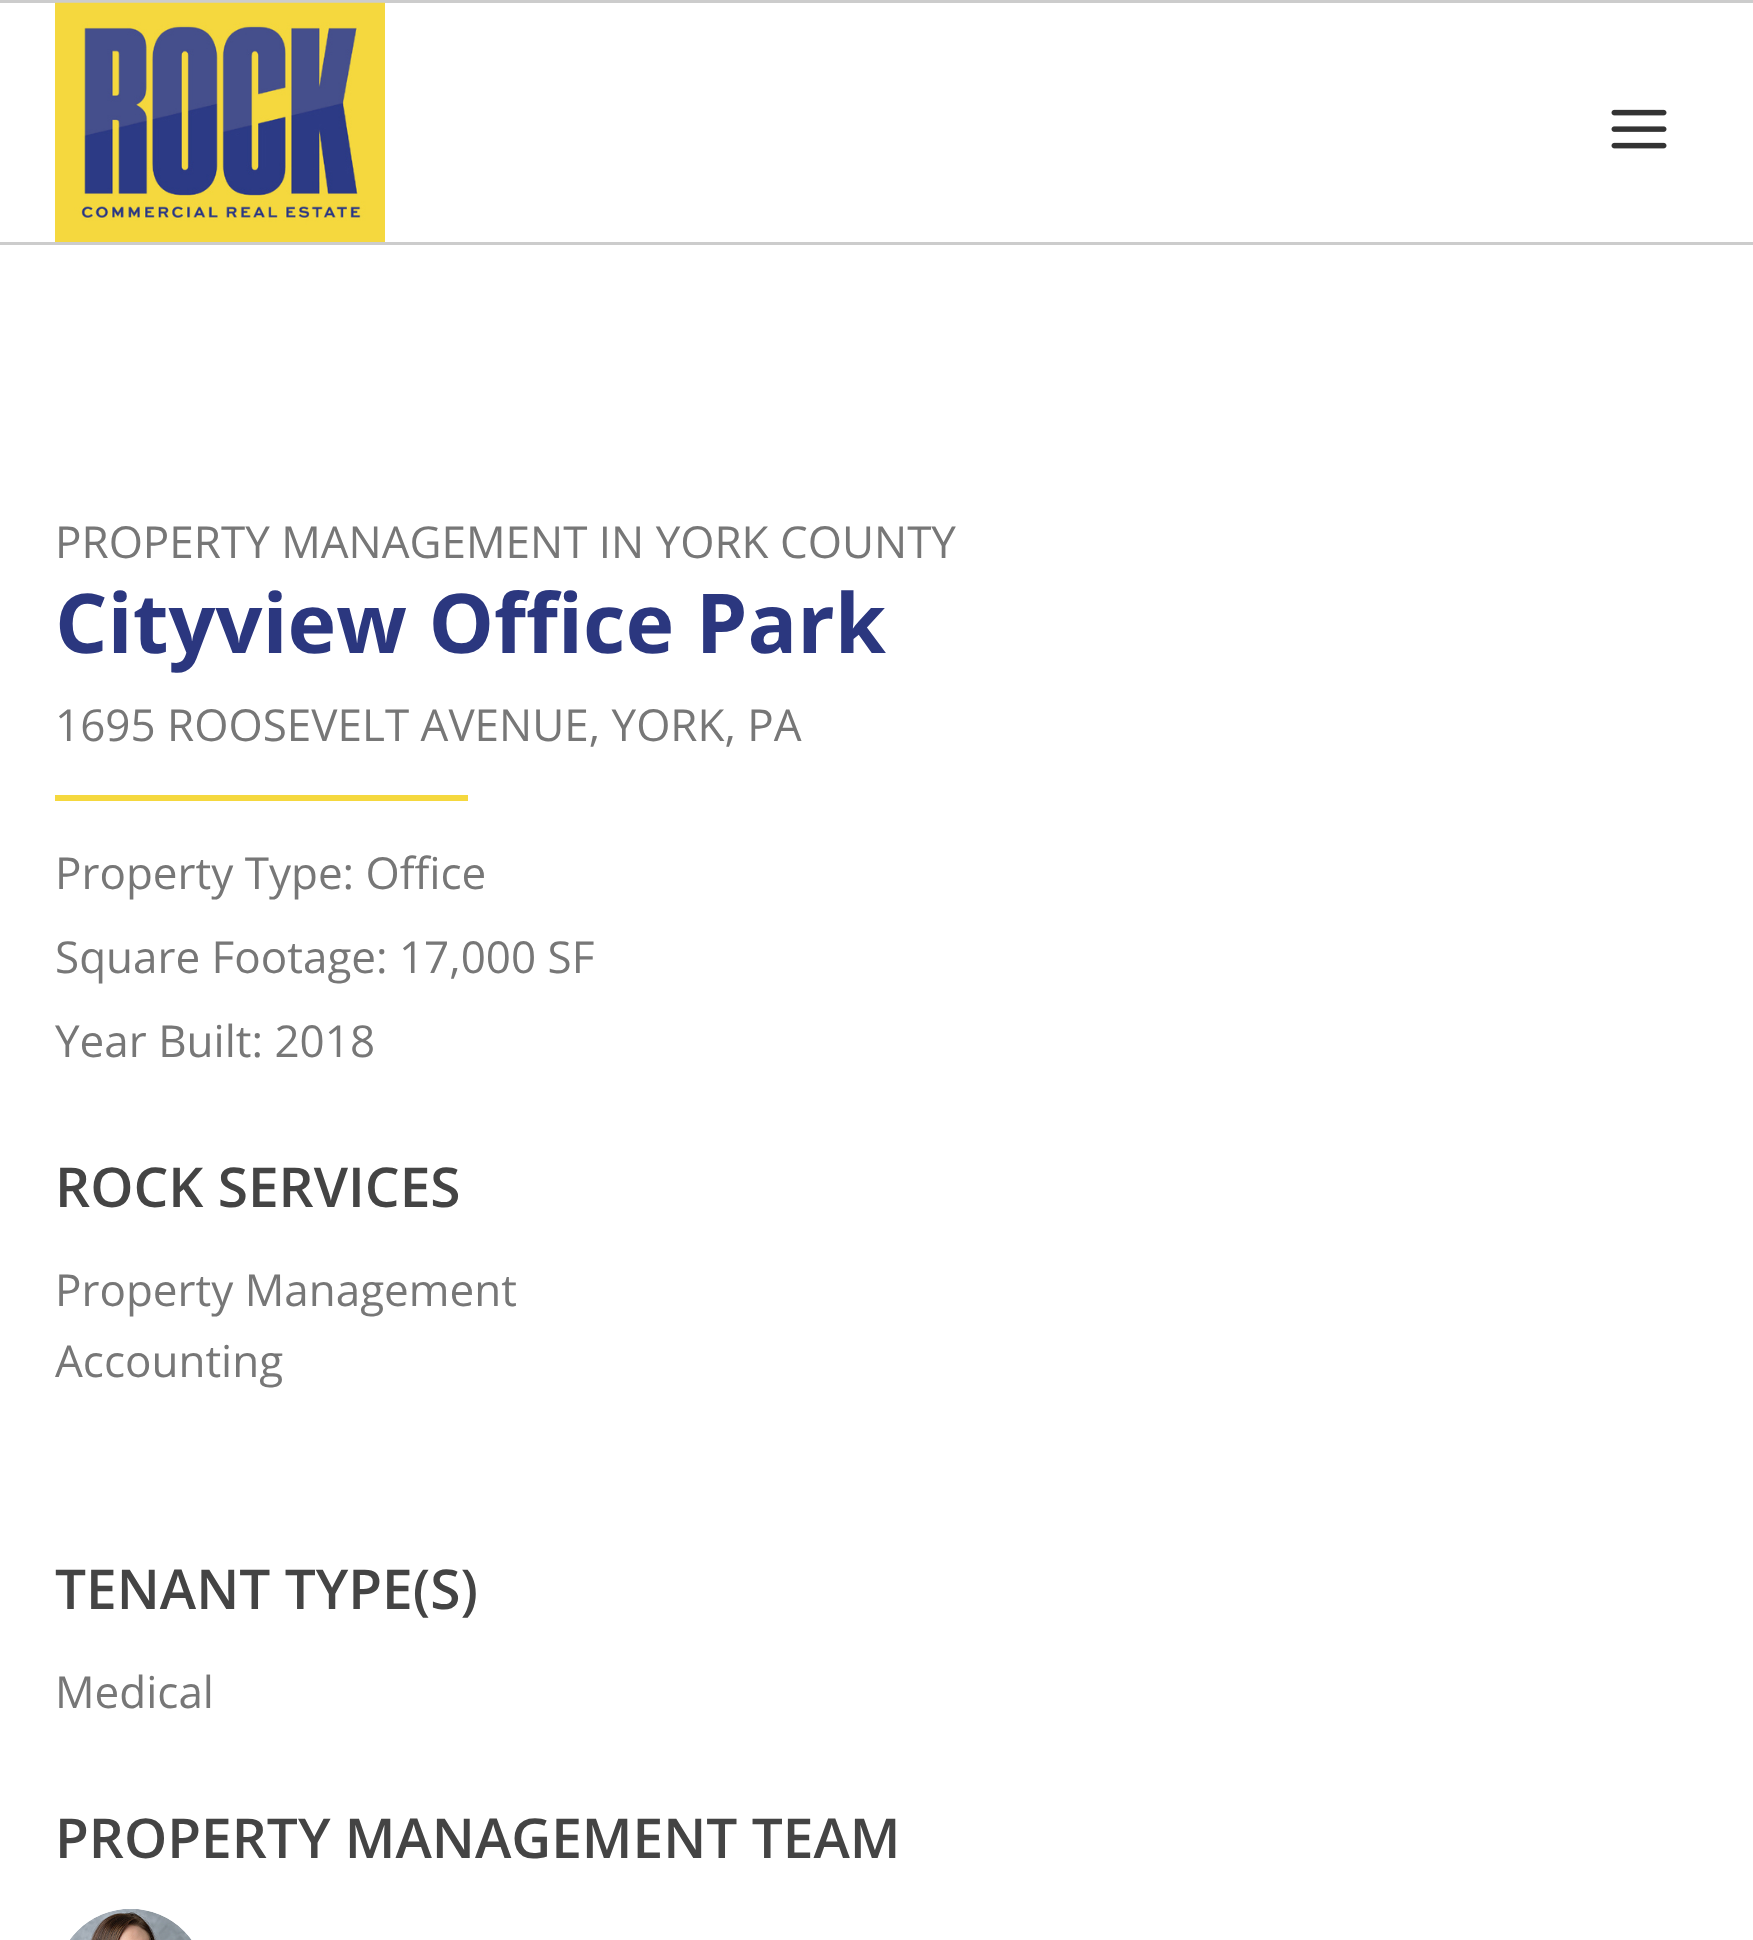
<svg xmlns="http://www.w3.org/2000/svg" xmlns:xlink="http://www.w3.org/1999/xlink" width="1753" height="1940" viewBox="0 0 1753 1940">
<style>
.cls-1{font:44px Open Sans;fill:#777777}
.cls-2{font:bold 82.5px Open Sans;fill:#2b377f}
.cls-3{font:600 55px Open Sans;fill:#444444}
</style>
<rect width="100%" height="100%" fill="#ffffff"/>
<rect fill="#cccccc" x="0" y="0" width="1753" height="3"/>
<rect fill="#cccccc" x="0" y="242" width="1753" height="3"/>
<image xlink:href="image0.png" x="55" y="2" width="330" height="240"/>
<image xlink:href="image1.png" x="1611" y="109" width="56" height="40"/>
<rect fill="#f5d83e" x="55" y="795" width="413" height="6"/>
<image xlink:href="image2.png" x="70" y="1909" width="122" height="31"/>
<text class="cls-1" x="55" y="558">PROPERTY MANAGEMENT IN YORK COUNTY</text>
<text class="cls-2" x="55" y="653">Cityview Office Park</text>
<text class="cls-1" x="55" y="741">1695 ROOSEVELT AVENUE, YORK, PA</text>
<text class="cls-1"><tspan x="55" y="889">Property Type: Office</tspan><tspan x="55" y="973">Square Footage: 17,000 SF</tspan><tspan x="55" y="1057">Year Built: 2018</tspan></text>
<text class="cls-3" x="55" y="1207">ROCK SERVICES</text>
<text class="cls-1"><tspan x="55" y="1306">Property Management</tspan><tspan x="55" y="1377">Accounting</tspan></text>
<text class="cls-3" x="55" y="1609">TENANT TYPE(S)</text>
<text class="cls-1" x="55" y="1708">Medical</text>
<text class="cls-3" x="55" y="1858">PROPERTY MANAGEMENT TEAM</text>
</svg>
